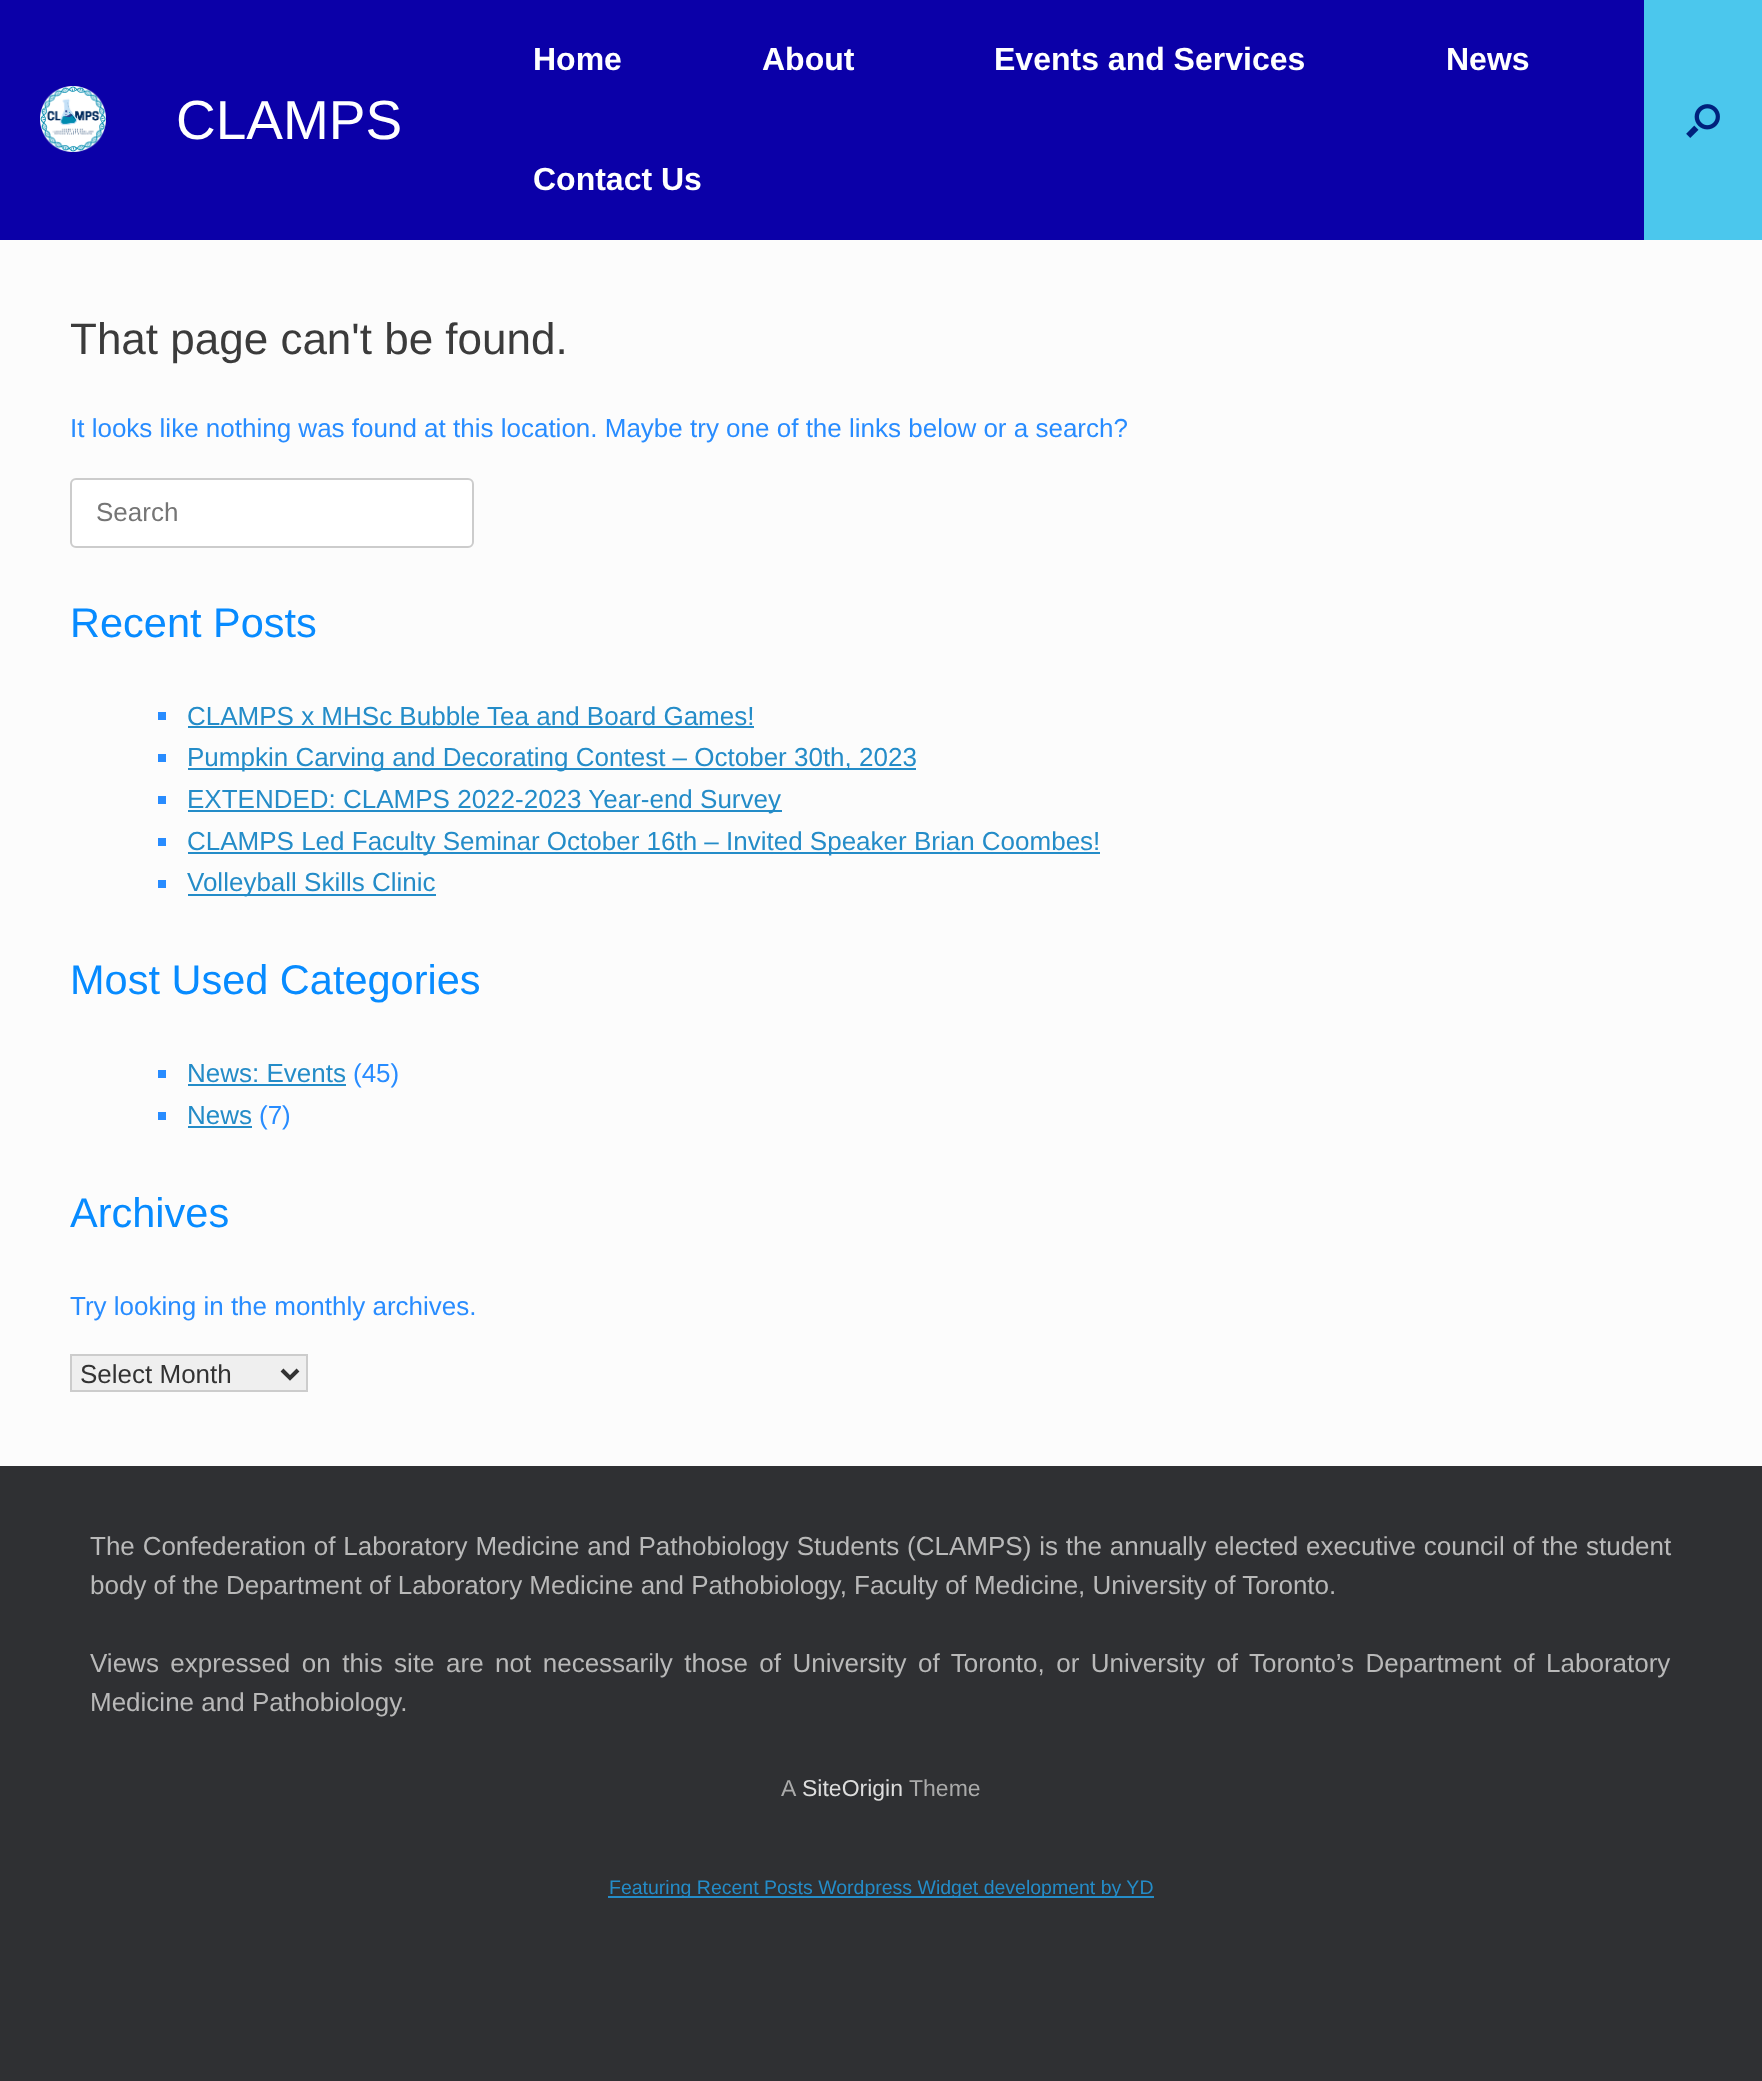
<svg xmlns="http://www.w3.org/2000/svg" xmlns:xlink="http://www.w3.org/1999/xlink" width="1762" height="2081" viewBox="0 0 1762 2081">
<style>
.cls-1{font:55px Liberation Sans;fill:#ffffff}
.cls-2{font:bold 32px Liberation Sans;fill:#ffffff}
.cls-3{font:44px Liberation Sans;fill:#3b3b3b}
.cls-4{font:26px Liberation Sans;fill:#288cff}
.cls-5{font:26px Liberation Sans;fill:#757575}
.cls-6{font:41.5px Liberation Sans;fill:#078bff}
.cls-7{font:26px Liberation Sans;fill:#248cc8}
.cls-8{font:26px Liberation Sans;fill:#333333}
.cls-9{font:26px Liberation Sans;fill:#b9b9b9}
.cls-10{font:23px Liberation Sans;fill:#aaaaaa}
.cls-11{font:23px Liberation Sans;fill:#dddddd}
.cls-12{font:19.5px Liberation Sans;fill:#248cc8}
</style>
<rect width="100%" height="100%" fill="#2f3033"/>
<rect fill="#0b00a8" x="0" y="0" width="1644" height="240"/>
<image xlink:href="image0.png" x="40" y="86" width="66" height="66"/>
<rect fill="#4bc7ed" x="1644" y="0" width="118" height="240"/>
<image xlink:href="image1.png" x="1686" y="104" width="34" height="34"/>
<rect fill="#fcfcfc" x="0" y="240" width="1762" height="1226"/>
<rect fill="#ffffff" stroke="#cccccc" stroke-width="2" x="71" y="479" width="402" height="68" rx="5"/>
<rect fill="#288cff" x="158" y="712" width="8" height="8"/>
<rect fill="#248cc8" x="188" y="726" width="566" height="2"/>
<rect fill="#288cff" x="158" y="754" width="8" height="8"/>
<rect fill="#248cc8" x="188" y="768" width="728" height="2"/>
<rect fill="#288cff" x="158" y="796" width="8" height="8"/>
<rect fill="#248cc8" x="188" y="810" width="594" height="2"/>
<rect fill="#288cff" x="158" y="838" width="8" height="8"/>
<rect fill="#248cc8" x="188" y="852" width="912" height="2"/>
<rect fill="#288cff" x="158" y="880" width="8" height="8"/>
<rect fill="#248cc8" x="188" y="894" width="248" height="2"/>
<rect fill="#288cff" x="158" y="1070" width="8" height="8"/>
<rect fill="#248cc8" x="188" y="1084" width="158" height="2"/>
<rect fill="#288cff" x="158" y="1112" width="8" height="8"/>
<rect fill="#248cc8" x="188" y="1126" width="64" height="2"/>
<rect fill="#efefef" stroke="#cccccc" stroke-width="2" x="71" y="1355" width="236" height="36"/>
<path fill="none" stroke="#333333" stroke-width="4" d="M282 1370L290 1378L298 1370"/>
<rect fill="#248cc8" x="608" y="1896" width="546" height="2"/>
<text class="cls-1" x="176" y="139">CLAMPS</text>
<text class="cls-2" x="533" y="70">Home</text>
<text class="cls-2" x="762" y="70">About</text>
<text class="cls-2" x="994" y="70">Events and Services</text>
<text class="cls-2" x="1446" y="70">News</text>
<text class="cls-2" x="533" y="190">Contact Us</text>
<text class="cls-3" x="70" y="354">That page can't be found.</text>
<text class="cls-4" x="70" y="437">It looks like nothing was found at this location. Maybe try one of the links below or a search?</text>
<text class="cls-5" x="96" y="521">Search</text>
<text class="cls-6" x="70" y="637">Recent Posts</text>
<text class="cls-7"><tspan x="187" y="725">CLAMPS x MHSc Bubble Tea and Board Games!</tspan><tspan x="187" y="766">Pumpkin Carving and Decorating Contest – October 30th, 2023</tspan><tspan x="187" y="808">EXTENDED: CLAMPS 2022-2023 Year-end Survey</tspan><tspan x="187" y="850">CLAMPS Led Faculty Seminar October 16th – Invited Speaker Brian Coombes!</tspan><tspan x="187" y="891">Volleyball Skills Clinic</tspan></text>
<text class="cls-6" x="70" y="994">Most Used Categories</text>
<text class="cls-7" x="187" y="1082">News: Events</text>
<text class="cls-4" x="353" y="1082">(45)</text>
<text class="cls-7" x="187" y="1124">News</text>
<text class="cls-4" x="259" y="1124">(7)</text>
<text class="cls-6" x="70" y="1227">Archives</text>
<text class="cls-4" x="70" y="1315">Try looking in the monthly archives.</text>
<text class="cls-8" x="80" y="1383">Select Month</text>
<text class="cls-9"><tspan x="90" y="1555" word-spacing="0.6">The Confederation of Laboratory Medicine and Pathobiology Students (CLAMPS) is the annually elected executive council of the student</tspan><tspan x="90" y="1594">body of the Department of Laboratory Medicine and Pathobiology, Faculty of Medicine, University of Toronto.</tspan></text>
<text class="cls-9"><tspan x="90" y="1672" word-spacing="4.25">Views expressed on this site are not necessarily those of University of Toronto, or University of Toronto’s Department of Laboratory</tspan><tspan x="90" y="1711">Medicine and Pathobiology.</tspan></text>
<text class="cls-10" x="781" y="1796">A</text>
<text class="cls-11" x="802" y="1796">SiteOrigin</text>
<text class="cls-10" x="909" y="1796">Theme</text>
<text class="cls-12" x="609" y="1894">Featuring Recent Posts Wordpress Widget development by YD</text>
</svg>
